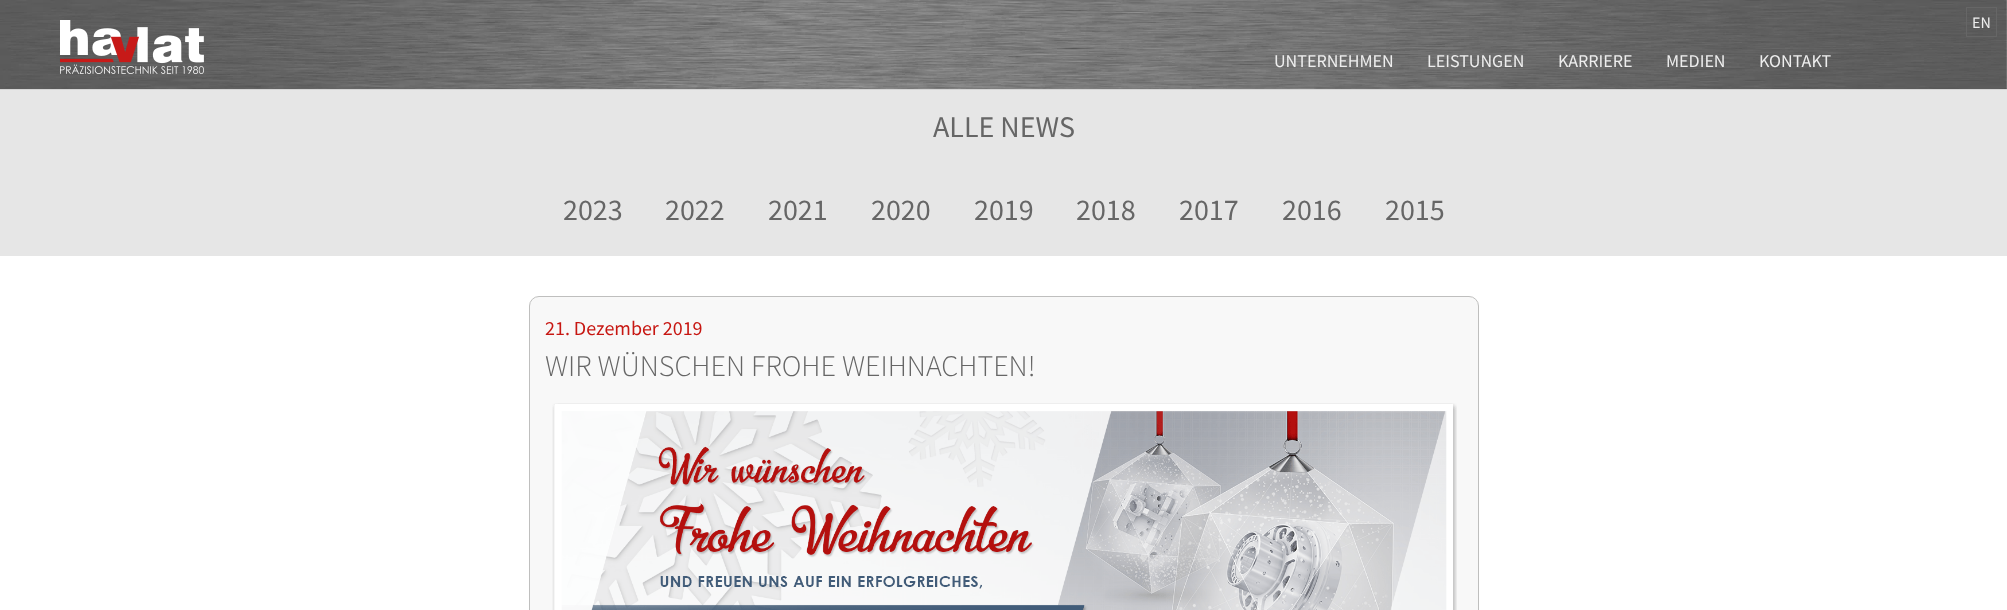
<svg xmlns="http://www.w3.org/2000/svg" xmlns:xlink="http://www.w3.org/1999/xlink" width="2007" height="610" viewBox="0 0 2007 610">
<style>
.cls-1{font:16px Source Sans Pro;fill:#eeeeee}
.cls-2{font:18px Source Sans Pro;fill:#eeeeee}
.cls-3{font:30px Source Sans Pro;fill:#666666}
.cls-4{font:20px Source Sans Pro;fill:#c71712}
.cls-5{font:300 30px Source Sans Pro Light;fill:#666666}
</style>
<rect width="100%" height="100%" fill="#ffffff"/>
<image xlink:href="image0.png" x="0" y="0" width="2007" height="89"/>
<rect fill="none" stroke="#666666" x="1966.5" y="7.5" width="30" height="29"/>
<rect fill="#d5d5d5" x="0" y="89" width="2007" height="1"/>
<image xlink:href="image1.png" x="60" y="20" width="144" height="54"/>
<rect fill="#e6e6e6" x="0" y="90" width="2007" height="166"/>
<rect fill="#f8f8f8" stroke="#bfbfbe" x="529.5" y="296.5" width="949" height="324" rx="9.5"/>
<image xlink:href="image2.png" x="552" y="403" width="905" height="207"/>
<text class="cls-1" x="1972" y="28">EN</text>
<text class="cls-2" x="1274" y="67">UNTERNEHMEN</text>
<text class="cls-2" x="1427" y="67">LEISTUNGEN</text>
<text class="cls-2" x="1558" y="67">KARRIERE</text>
<text class="cls-2" x="1666" y="67">MEDIEN</text>
<text class="cls-2" x="1759" y="67">KONTAKT</text>
<text class="cls-3" x="933" y="137">ALLE NEWS</text>
<text class="cls-3" x="563" y="220">2023</text>
<text class="cls-3" x="665" y="220">2022</text>
<text class="cls-3" x="768" y="220">2021</text>
<text class="cls-3" x="871" y="220">2020</text>
<text class="cls-3" x="974" y="220">2019</text>
<text class="cls-3" x="1076" y="220">2018</text>
<text class="cls-3" x="1179" y="220">2017</text>
<text class="cls-3" x="1282" y="220">2016</text>
<text class="cls-3" x="1385" y="220">2015</text>
<text class="cls-4" x="545" y="335">21. Dezember 2019</text>
<text class="cls-5" x="545" y="376">WIR WÜNSCHEN FROHE WEIHNACHTEN!</text>
</svg>
